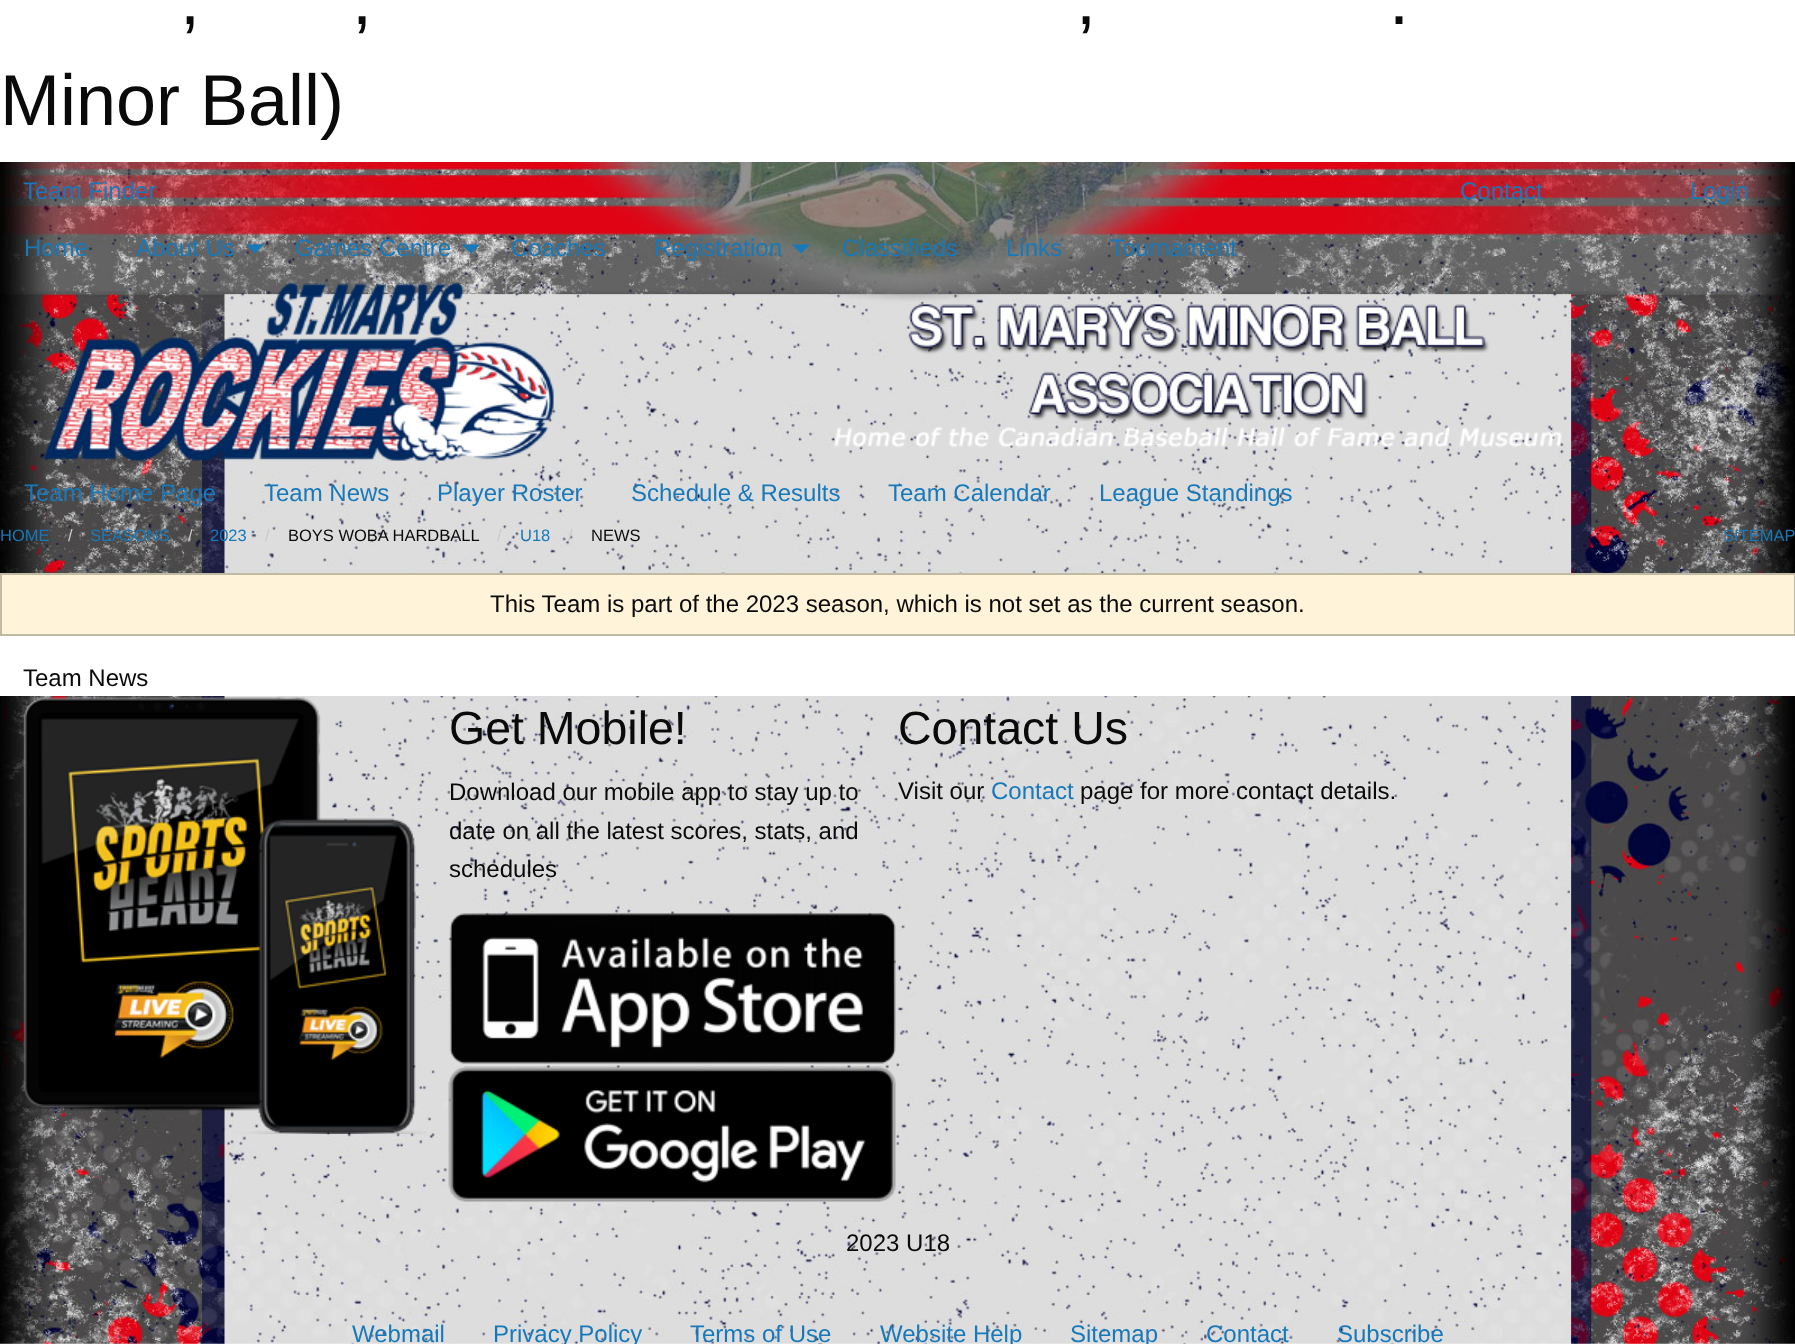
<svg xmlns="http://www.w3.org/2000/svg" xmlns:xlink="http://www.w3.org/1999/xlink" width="1795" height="1344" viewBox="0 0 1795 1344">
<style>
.cls-1{font:72px Liberation Sans;fill:#0a0a0a}
.cls-2{font:24px Liberation Sans;fill:#1779ba}
.cls-3{font:16.5px Liberation Sans;fill:#1779ba}
.cls-4{font:16.5px Liberation Sans;fill:#cacaca}
.cls-5{font:16.5px Liberation Sans;fill:#0a0a0a}
.cls-6{font:24px Liberation Sans;fill:#0a0a0a}
.cls-7{font:46.5px Liberation Sans;fill:#0a0a0a}
</style>
<rect width="100%" height="100%" fill="#ffffff"/>
<image xlink:href="image0.png" x="0" y="162" width="1795" height="1182"/>
<path fill="#1779ba" d="M246 244.5H264L255 253.5Z"/>
<path fill="#1779ba" d="M462 244.5H480L471 253.5Z"/>
<path fill="#1779ba" d="M792 244.5H810L801 253.5Z"/>
<image xlink:href="image1.png" x="43" y="283" width="511" height="178"/>
<image xlink:href="image2.png" x="834" y="304" width="728" height="144"/>
<rect fill="#ffffff" x="0" y="636" width="1795" height="60"/>
<rect fill="#fff3d9" stroke="#c2b9a5" stroke-width="2" x="1" y="574" width="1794" height="61"/>
<image xlink:href="image3.png" x="23" y="696" width="404" height="438"/>
<image xlink:href="image4.png" x="449" y="913" width="447" height="151"/>
<image xlink:href="image5.png" x="448" y="1066" width="448" height="136"/>
<text class="cls-1" x="180" y="24">,</text>
<text class="cls-1" x="352" y="24">,</text>
<text class="cls-1" x="1076" y="24">,</text>
<text class="cls-1" x="1389" y="24">.</text>
<text class="cls-1" x="0" y="125">Minor Ball)</text>
<text class="cls-2" x="23" y="199">Team Finder</text>
<text class="cls-2" x="1460" y="199">Contact</text>
<text class="cls-2" x="1690" y="199">Login</text>
<text class="cls-2" x="24" y="256">Home</text>
<text class="cls-2" x="136" y="256">About Us</text>
<text class="cls-2" x="295" y="256">Games Centre</text>
<text class="cls-2" x="511" y="256">Coaches</text>
<text class="cls-2" x="654" y="256">Registration</text>
<text class="cls-2" x="842" y="256">Classifieds</text>
<text class="cls-2" x="1006" y="256">Links</text>
<text class="cls-2" x="1110" y="256">Tournament</text>
<text class="cls-2" x="24" y="501">Team Home Page</text>
<text class="cls-2" x="264" y="501">Team News</text>
<text class="cls-2" x="437" y="501">Player Roster</text>
<text class="cls-2" x="631" y="501">Schedule &amp; Results</text>
<text class="cls-2" x="888" y="501">Team Calendar</text>
<text class="cls-2" x="1099" y="501">League Standings</text>
<text class="cls-3" x="0" y="541">HOME</text>
<text class="cls-4" x="68" y="541">/</text>
<text class="cls-3" x="90" y="541">SEASONS</text>
<text class="cls-4" x="188" y="541">/</text>
<text class="cls-3" x="210" y="541">2023</text>
<text class="cls-4" x="265" y="541">/</text>
<text class="cls-5" x="288" y="541">BOYS WOBA HARDBALL</text>
<text class="cls-4" x="497" y="541">/</text>
<text class="cls-3" x="520" y="541">U18</text>
<text class="cls-4" x="568" y="541">/</text>
<text class="cls-5" x="591" y="541">NEWS</text>
<text class="cls-3" x="1723" y="541">SITEMAP</text>
<text class="cls-6" x="490" y="612">This Team is part of the 2023 season, which is not set as the current season.</text>
<text class="cls-6" x="23" y="686">Team News</text>
<text class="cls-7" x="449" y="744">Get Mobile!</text>
<text class="cls-6"><tspan x="449" y="800">Download our mobile app to stay up to</tspan><tspan x="449" y="839">date on all the latest scores, stats, and</tspan><tspan x="449" y="877">schedules</tspan></text>
<text class="cls-7" x="898" y="744">Contact Us</text>
<text class="cls-6" x="898" y="799">Visit our</text>
<text class="cls-2" x="991" y="799">Contact</text>
<text class="cls-6" x="1080" y="799">page for more contact details.</text>
<text class="cls-6" x="846" y="1251">2023 U18</text>
<text class="cls-2" x="352" y="1342">Webmail</text>
<text class="cls-2" x="493" y="1342">Privacy Policy</text>
<text class="cls-2" x="690" y="1342">Terms of Use</text>
<text class="cls-2" x="880" y="1342">Website Help</text>
<text class="cls-2" x="1070" y="1342">Sitemap</text>
<text class="cls-2" x="1206" y="1342">Contact</text>
<text class="cls-2" x="1337" y="1342">Subscribe</text>
</svg>
